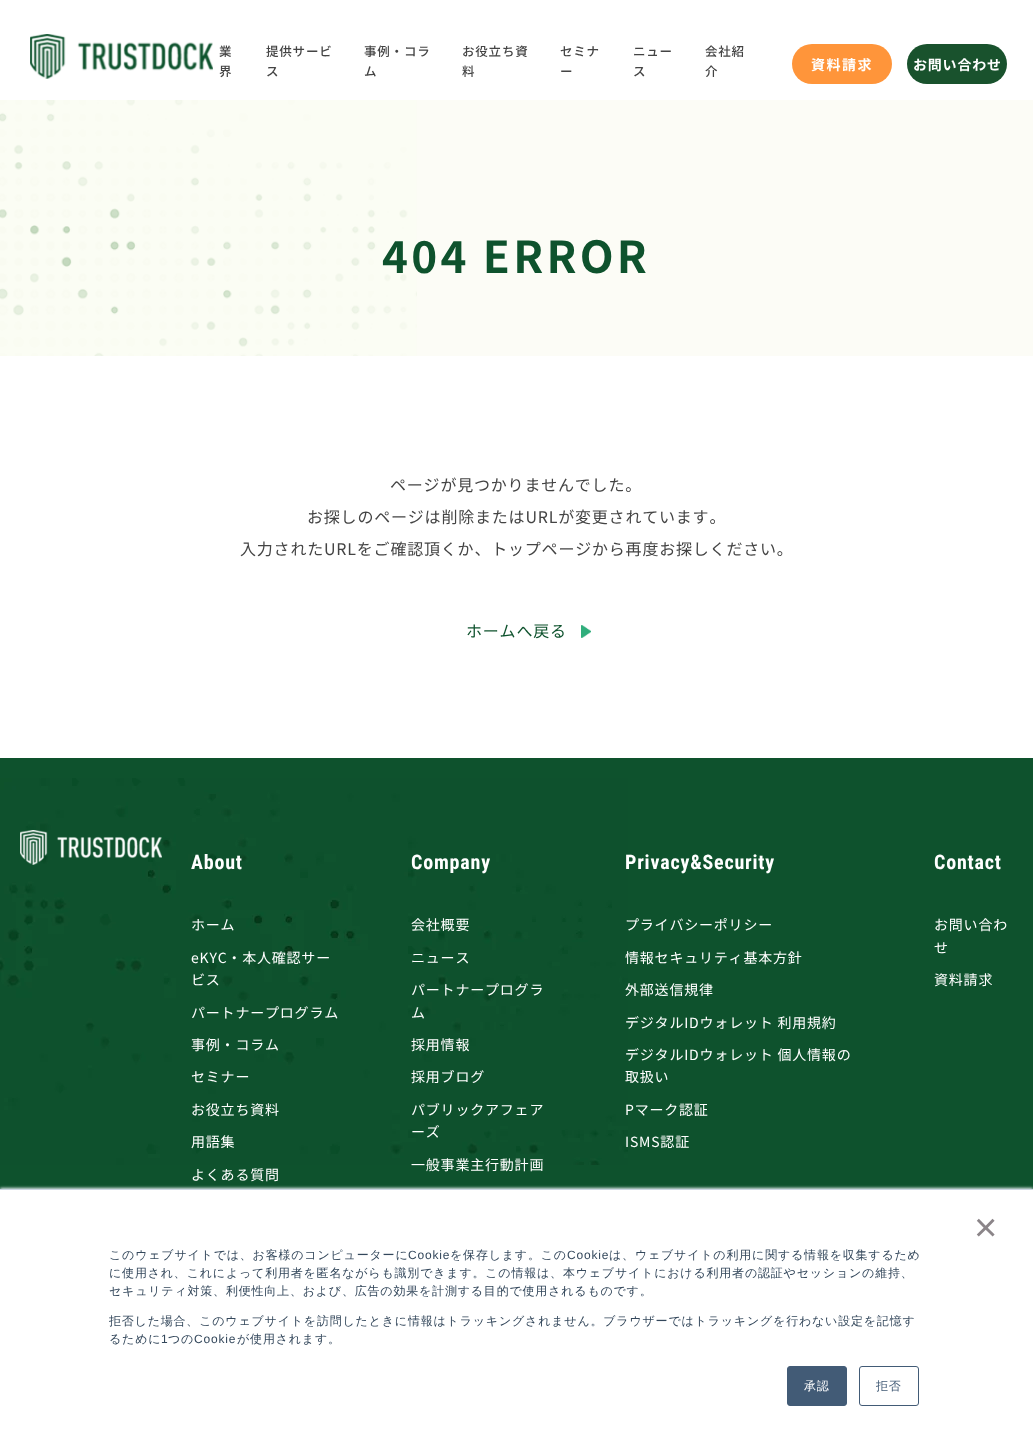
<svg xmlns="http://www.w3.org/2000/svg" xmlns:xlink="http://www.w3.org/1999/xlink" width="1033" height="1432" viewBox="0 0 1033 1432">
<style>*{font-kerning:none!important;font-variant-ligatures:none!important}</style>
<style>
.cls-1{font:500 12.5px Noto Sans JP;letter-spacing:0.8px;fill:#444444}
.cls-2{font:bold 14px Noto Sans JP;letter-spacing:1.5px;fill:#ffffff}
.cls-3{font:bold 14px Noto Sans JP;letter-spacing:0.8px;fill:#ffffff}
.cls-4{font:bold 44px Noto Sans JP;letter-spacing:3.25px;fill:#0e522d}
.cls-5{font:16px Noto Sans JP;letter-spacing:0.8px;fill:#444444}
.cls-6{font:16px Noto Sans JP;letter-spacing:0.8px;fill:#0e522d}
.cls-7{font:bold 20px Roboto Condensed;letter-spacing:0.8px;fill:#ffffff}
.cls-8{font:14px Noto Sans JP;letter-spacing:0.8px;fill:#ffffff}
.cls-9{font:40px Liberation Sans;letter-spacing:0.8px;fill:#8b8589}
.cls-10{font:500 12px WenQuanYi Zen Hei;letter-spacing:0.8px;fill:#33475b}
.cls-11{font:12px Liberation Sans;letter-spacing:0.8px;fill:#33475b}
.cls-12{font:500 12px WenQuanYi Zen Hei;letter-spacing:0.8px;fill:#ffffff}
.cls-13{font:500 12px WenQuanYi Zen Hei;letter-spacing:0.8px;fill:#425b76}
</style>
<rect width="100%" height="100%" fill="#ffffff"/>
<image xlink:href="image0.png" x="30" y="34" width="183" height="45"/>
<rect fill="#ff953a" x="792" y="44" width="100" height="40" rx="20"/>
<rect fill="#19522d" x="907" y="44" width="100" height="40" rx="20"/>
<rect fill="#fcfcf6" x="417" y="100" width="616" height="256"/>
<image xlink:href="image1.png" x="0" y="100" width="417" height="256"/>
<image xlink:href="image2.png" x="581" y="625" width="10" height="13"/>
<rect fill="#0e522d" x="0" y="758" width="1033" height="431"/>
<image xlink:href="image3.png" x="0" y="778" width="628" height="387"/>
<image xlink:href="image4.png" x="20" y="830" width="142" height="35"/>
<rect fill="#eaf0f6" filter="blur(1.5px)" x="0" y="1188" width="1033" height="243"/>
<rect fill="#ffffff" x="0" y="1190" width="1033" height="242"/>
<rect fill="#cbd6e2" x="0" y="1189" width="1033" height="1"/>
<rect fill="#425b76" stroke="#425b76" x="787.5" y="1366.5" width="59" height="39" rx="2.5"/>
<rect fill="none" stroke="#425b76" x="859.5" y="1366.5" width="59" height="39" rx="2.5"/>
<text class="cls-1"><tspan x="219" y="56">業</tspan><tspan x="219" y="76">界</tspan></text>
<text class="cls-1"><tspan x="266" y="56">提供サービ</tspan><tspan x="266" y="76">ス</tspan></text>
<text class="cls-1"><tspan x="364" y="56">事例・コラ</tspan><tspan x="364" y="76">ム</tspan></text>
<text class="cls-1"><tspan x="462" y="56">お役立ち資</tspan><tspan x="462" y="76">料</tspan></text>
<text class="cls-1"><tspan x="560" y="56">セミナ</tspan><tspan x="560" y="76">ー</tspan></text>
<text class="cls-1"><tspan x="633" y="56">ニュー</tspan><tspan x="633" y="76">ス</tspan></text>
<text class="cls-1"><tspan x="705" y="56">会社紹</tspan><tspan x="705" y="76">介</tspan></text>
<text class="cls-2" x="811" y="70">資料請求</text>
<text class="cls-3" x="913" y="70">お問い合わせ</text>
<text class="cls-4" x="382" y="273">404 ERROR</text>
<text class="cls-5" x="390" y="491">ページが見つかりませんでした。</text>
<text class="cls-5" x="307" y="523">お探しのページは削除またはURLが変更されています。</text>
<text class="cls-5" x="240" y="555">入力されたURLをご確認頂くか、トップページから再度お探しください。</text>
<text class="cls-6" x="466" y="637">ホームへ戻る</text>
<text class="cls-7" x="191" y="869">About</text>
<text class="cls-8" x="191" y="930">ホーム</text>
<text class="cls-8"><tspan x="191" y="963">eKYC・本⼈確認サー</tspan><tspan x="191" y="985">ビス</tspan></text>
<text class="cls-8" x="191" y="1018">パートナープログラム</text>
<text class="cls-8" x="191" y="1050">事例・コラム</text>
<text class="cls-8" x="191" y="1082">セミナー</text>
<text class="cls-8" x="191" y="1115">お役立ち資料</text>
<text class="cls-8" x="191" y="1147">用語集</text>
<text class="cls-8" x="191" y="1180">よくある質問</text>
<text class="cls-7" x="411" y="869">Company</text>
<text class="cls-8" x="411" y="930">会社概要</text>
<text class="cls-8" x="411" y="963">ニュース</text>
<text class="cls-8"><tspan x="411" y="995">パートナープログラ</tspan><tspan x="411" y="1018">ム</tspan></text>
<text class="cls-8" x="411" y="1050">採用情報</text>
<text class="cls-8" x="411" y="1082">採用ブログ</text>
<text class="cls-8"><tspan x="411" y="1115">パブリックアフェア</tspan><tspan x="411" y="1137">ーズ</tspan></text>
<text class="cls-8" x="411" y="1170">一般事業主行動計画</text>
<text class="cls-7" x="625" y="869">Privacy&amp;Security</text>
<text class="cls-8" x="625" y="930">プライバシーポリシー</text>
<text class="cls-8" x="625" y="963">情報セキュリティ基本方針</text>
<text class="cls-8" x="625" y="995">外部送信規律</text>
<text class="cls-8" x="625" y="1028">デジタルIDウォレット 利用規約</text>
<text class="cls-8"><tspan x="625" y="1060">デジタルIDウォレット 個人情報の</tspan><tspan x="625" y="1082">取扱い</tspan></text>
<text class="cls-8" x="625" y="1115">Pマーク認証</text>
<text class="cls-8" x="625" y="1147">ISMS認証</text>
<text class="cls-7" x="934" y="869">Contact</text>
<text class="cls-8"><tspan x="934" y="930">お問い合わ</tspan><tspan x="934" y="953">せ</tspan></text>
<text class="cls-8" x="934" y="985">資料請求</text>
<text class="cls-9" x="974" y="1241">×</text>
<text class="cls-10" x="109" y="1259">このウェブサイトでは、お客様のコンピューターに</text>
<text class="cls-11" x="408" y="1259">Cookie</text>
<text class="cls-10" x="450" y="1259">を保存します。この</text>
<text class="cls-11" x="567" y="1259">Cookie</text>
<text class="cls-10" x="609" y="1259">は、ウェブサイトの利用に関する情報を収集するため</text>
<text class="cls-10"><tspan x="109" y="1277">に使用され、これによって利用者を匿名ながらも識別できます。この情報は、本ウェブサイトにおける利用者の認証やセッションの維持、</tspan><tspan x="109" y="1295">セキュリティ対策、利便性向上、および、広告の効果を計測する目的で使用されるものです。</tspan></text>
<text class="cls-10"><tspan x="109" y="1325">拒否した場合、このウェブサイトを訪問したときに情報はトラッキングされません。ブラウザーではトラッキングを行わない設定を記憶す</tspan><tspan x="109" y="1343">るために</tspan></text>
<text class="cls-11" x="161" y="1343">1</text>
<text class="cls-10" x="168" y="1343">つの</text>
<text class="cls-11" x="194" y="1343">Cookie</text>
<text class="cls-10" x="237" y="1343">が使用されます。</text>
<text class="cls-12" x="804" y="1390">承認</text>
<text class="cls-13" x="876" y="1390">拒否</text>
</svg>
